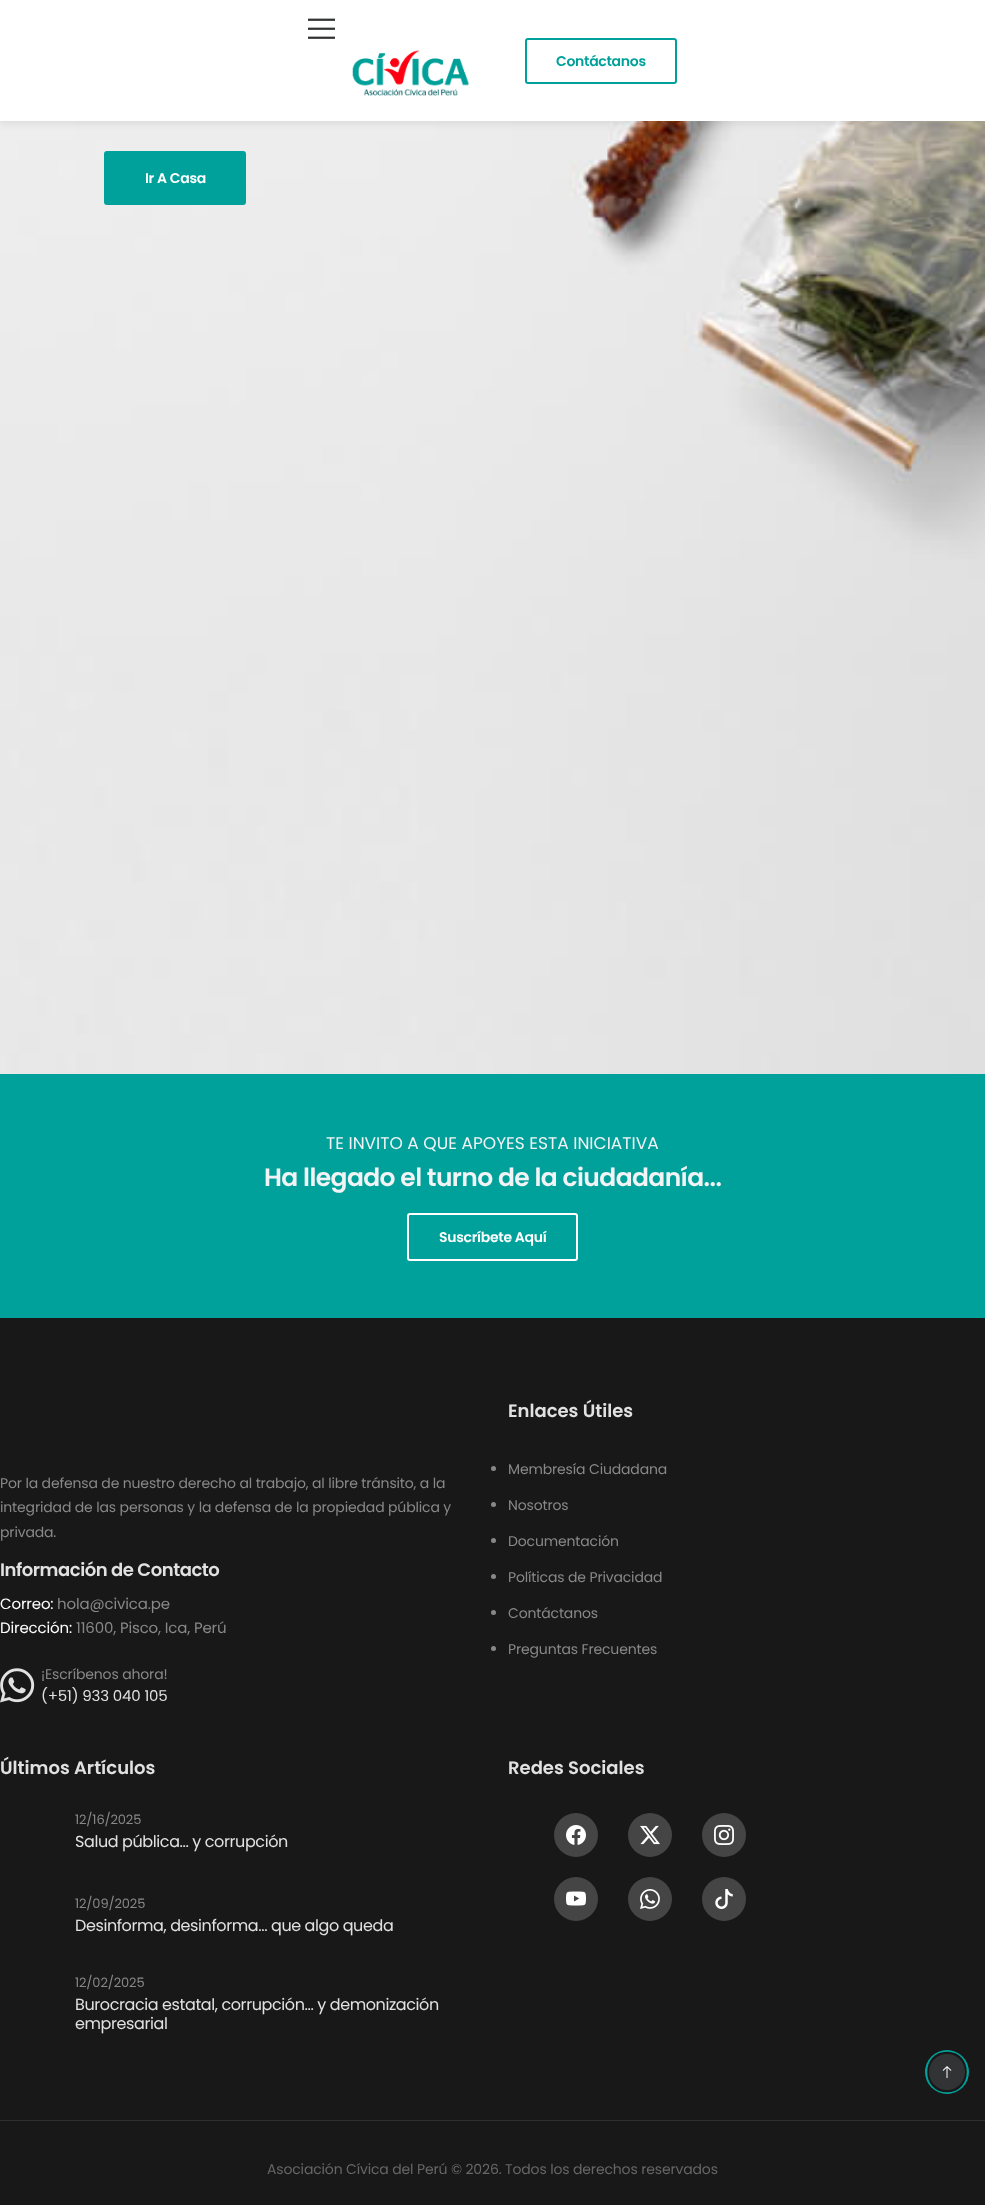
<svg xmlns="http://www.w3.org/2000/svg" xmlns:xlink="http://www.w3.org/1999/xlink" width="985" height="2205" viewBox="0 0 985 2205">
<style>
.cls-1{font:600 14px Poppins;letter-spacing:-0.3px;fill:#00a19a}
.cls-2{font:600 14px Poppins;letter-spacing:-0.3px;fill:#ffffff}
.cls-3{font:17px Poppins;fill:#f2f3f5}
.cls-4{font:600 25px Poppins;letter-spacing:-0.6px;fill:#f2f3f5}
.cls-5{font:14px Poppins;letter-spacing:-0.15px;fill:#888888}
.cls-6{font:600 18px Poppins;letter-spacing:-0.45px;fill:#e1e1e1}
.cls-7{font:15px Poppins;letter-spacing:-0.15px;fill:#ffffff}
.cls-8{font:15px Poppins;letter-spacing:-0.15px;fill:#888888}
.cls-9{font:15px Poppins;letter-spacing:-0.15px;fill:#e1e1e1}
.cls-10{font:600 18px Poppins;fill:#e1e1e1}
.cls-11{font:13px Poppins;letter-spacing:-0.15px;fill:#888888}
.cls-12{font:16px Poppins;letter-spacing:-0.4px;fill:#e1e1e1}
.cls-13{font:14px Poppins;letter-spacing:-0.15px;fill:#666666}
</style>
<defs>
<clipPath id="clip1"><rect x="925" y="2050" width="44" height="44" rx="22"/></clipPath>
</defs>
<rect width="100%" height="100%" fill="#ffffff"/>
<image xlink:href="image2.png" x="0" y="121" width="985" height="953"/>
<rect fill="#000000" fill-opacity="0.1" filter="blur(5px)" x="-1" y="-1" width="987" height="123"/>
<rect fill="#ffffff" x="0" y="0" width="985" height="121"/>
<image xlink:href="image0.png" x="308" y="18" width="27" height="21"/>
<image xlink:href="image1.png" x="352" y="50" width="117" height="46"/>
<rect fill="none" stroke="#00a19a" stroke-width="2" x="526" y="39" width="150" height="44" rx="2"/>
<rect fill="#00a19a" stroke="#00a19a" stroke-width="2" x="105" y="152" width="140" height="52" rx="2"/>
<rect fill="#00a19a" x="0" y="1074" width="985" height="244"/>
<rect fill="none" stroke="#ffffff" stroke-width="2" x="408" y="1214" width="169" height="46" rx="2"/>
<rect fill="#181818" x="0" y="1318" width="985" height="887"/>
<image xlink:href="image3.png" x="0" y="1668" width="35" height="35"/>
<circle fill="#888888" cx="493.5" cy="1468.5" r="2.5"/>
<circle fill="#888888" cx="493.5" cy="1504.5" r="2.5"/>
<circle fill="#888888" cx="493.5" cy="1540.5" r="2.5"/>
<circle fill="#888888" cx="493.5" cy="1576.5" r="2.5"/>
<circle fill="#888888" cx="493.5" cy="1612.5" r="2.5"/>
<circle fill="#888888" cx="493.5" cy="1648.5" r="2.5"/>
<circle fill="#454545" cx="576" cy="1835" r="22"/>
<image xlink:href="image4.png" x="566" y="1825" width="20" height="20"/>
<circle fill="#454545" cx="650" cy="1835" r="22"/>
<image xlink:href="image5.png" x="640" y="1825" width="20" height="20"/>
<circle fill="#454545" cx="724" cy="1835" r="22"/>
<image xlink:href="image6.png" x="714" y="1825" width="20" height="20"/>
<circle fill="#454545" cx="576" cy="1899" r="22"/>
<image xlink:href="image7.png" x="566" y="1891" width="20" height="15"/>
<circle fill="#454545" cx="650" cy="1899" r="22"/>
<image xlink:href="image8.png" x="640" y="1889" width="20" height="20"/>
<circle fill="#454545" cx="724" cy="1899" r="22"/>
<image xlink:href="image9.png" x="715" y="1889" width="18" height="20"/>
<rect fill="#2f2f2f" x="0" y="2120" width="985" height="1"/>
<g clip-path="url(#clip1)">
<path fill="none" stroke="#00a19a" stroke-width="2.5" stroke-linecap="round" d="M947 2050.5C975 2050.5 975 2093.5 947 2093.5C919 2093.5 919 2050.5 947 2050.5"/>
</g>
<circle fill="#323334" stroke="#323334" stroke-width="2" cx="947" cy="2072" r="17"/>
<image xlink:href="image10.png" x="942" y="2066" width="10" height="13"/>
<text class="cls-1" x="556" y="66">Contáctanos</text>
<text class="cls-2" x="145" y="183">Ir A Casa</text>
<text class="cls-3" x="326" y="1149">TE INVITO A QUE APOYES ESTA INICIATIVA</text>
<text class="cls-4" x="264" y="1186">Ha llegado el turno de la ciudadanía...</text>
<text class="cls-2" x="439" y="1242">Suscríbete Aquí</text>
<text class="cls-5"><tspan x="0" y="1488">Por la defensa de nuestro derecho al trabajo, al libre tránsito, a la</tspan><tspan x="0" y="1512">integridad de las personas y la defensa de la propiedad pública y</tspan><tspan x="0" y="1537">privada.</tspan></text>
<text class="cls-6" x="0" y="1576">Información de Contacto</text>
<text class="cls-7" x="0" y="1609">Correo:</text>
<text class="cls-8" x="57" y="1609">hola@civica.pe</text>
<text class="cls-7" x="0" y="1633">Dirección:</text>
<text class="cls-8" x="76" y="1633">11600, Pisco, Ica, Perú</text>
<text class="cls-5" x="41" y="1679">¡Escríbenos ahora!</text>
<text class="cls-9" x="41" y="1701">(+51) 933 040 105</text>
<text class="cls-10" x="508" y="1417">Enlaces Útiles</text>
<text class="cls-5" x="508" y="1474">Membresía Ciudadana</text>
<text class="cls-5" x="508" y="1510">Nosotros</text>
<text class="cls-5" x="508" y="1546">Documentación</text>
<text class="cls-5" x="508" y="1582">Políticas de Privacidad</text>
<text class="cls-5" x="508" y="1618">Contáctanos</text>
<text class="cls-5" x="508" y="1654">Preguntas Frecuentes</text>
<text class="cls-10" x="0" y="1774">Últimos Artículos</text>
<text class="cls-11" x="75" y="1824">12/16/2025</text>
<text class="cls-12" x="75" y="1847">Salud pública… y corrupción</text>
<text class="cls-11" x="75" y="1908">12/09/2025</text>
<text class="cls-12" x="75" y="1931">Desinforma, desinforma… que algo queda</text>
<text class="cls-11" x="75" y="1987">12/02/2025</text>
<text class="cls-12"><tspan x="75" y="2010">Burocracia estatal, corrupción… y demonización</tspan><tspan x="75" y="2029">empresarial</tspan></text>
<text class="cls-10" x="508" y="1774">Redes Sociales</text>
<text class="cls-13" x="267" y="2174">Asociación Cívica del Perú © 2026. Todos los derechos reservados</text>
</svg>
